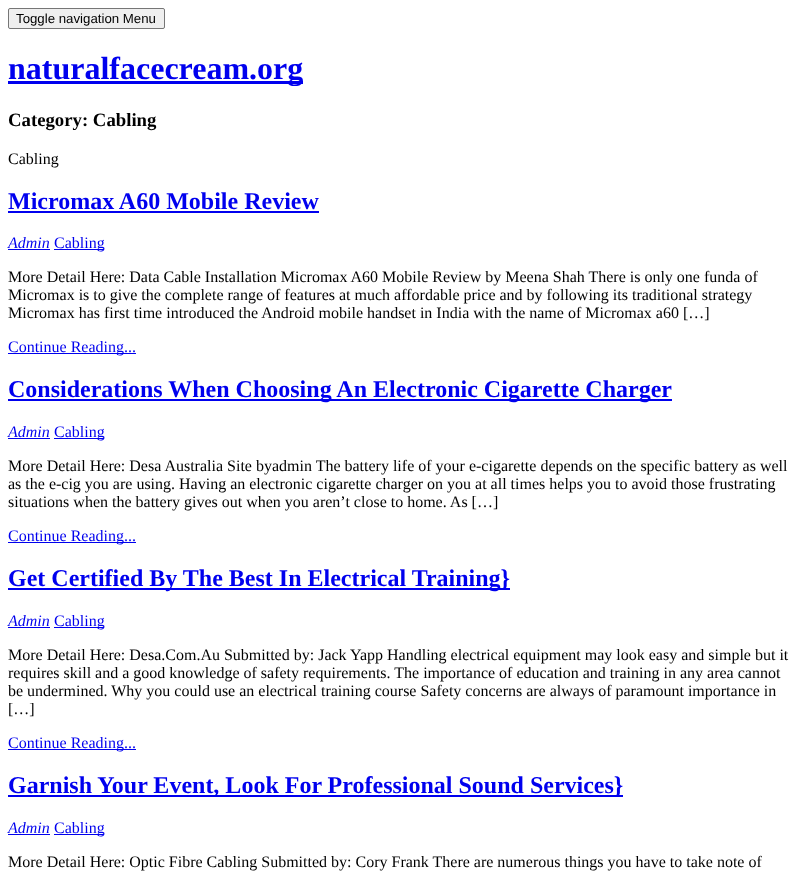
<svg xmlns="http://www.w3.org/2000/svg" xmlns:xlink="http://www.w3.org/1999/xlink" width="802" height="873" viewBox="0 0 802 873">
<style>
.cls-1{font:13.25px Liberation Sans;fill:#000000}
.cls-2{font:bold 32px Liberation Serif;fill:#0000ee}
.cls-3{font:bold 18.75px Liberation Serif;fill:#000000}
.cls-4{font:16px Liberation Serif;fill:#000000}
.cls-5{font:bold 24px Liberation Serif;fill:#0000ee}
.cls-6{font:italic 16px Liberation Serif;fill:#0000ee}
.cls-7{font:16px Liberation Serif;fill:#0000ee}
</style>
<rect width="100%" height="100%" fill="#ffffff"/>
<rect fill="#efefef" stroke="#767676" x="8.5" y="8.5" width="156" height="20" rx="1.5"/>
<rect fill="#0000ee" x="8" y="81" width="295" height="3"/>
<rect fill="#0000ee" x="8" y="211" width="311" height="2"/>
<rect fill="#0000ee" x="8" y="249" width="42" height="1"/>
<rect fill="#0000ee" x="54" y="249" width="50" height="1"/>
<rect fill="#0000ee" x="8" y="353" width="128" height="1"/>
<rect fill="#0000ee" x="8" y="399" width="664" height="2"/>
<rect fill="#0000ee" x="8" y="438" width="42" height="1"/>
<rect fill="#0000ee" x="54" y="438" width="50" height="1"/>
<rect fill="#0000ee" x="8" y="542" width="128" height="1"/>
<rect fill="#0000ee" x="8" y="588" width="502" height="2"/>
<rect fill="#0000ee" x="8" y="627" width="42" height="1"/>
<rect fill="#0000ee" x="54" y="627" width="50" height="1"/>
<rect fill="#0000ee" x="8" y="749" width="128" height="1"/>
<rect fill="#0000ee" x="8" y="795" width="615" height="2"/>
<rect fill="#0000ee" x="8" y="834" width="42" height="1"/>
<rect fill="#0000ee" x="54" y="834" width="50" height="1"/>
<text class="cls-1" x="16" y="23">Toggle navigation Menu</text>
<text class="cls-2" x="8" y="79">naturalfacecream.org</text>
<text class="cls-3" x="8" y="126">Category: Cabling</text>
<text class="cls-4" x="8" y="164">Cabling</text>
<text class="cls-5" x="8" y="209">Micromax A60 Mobile Review</text>
<text class="cls-6" x="8" y="248">Admin</text>
<text class="cls-7" x="54" y="248">Cabling</text>
<text class="cls-4"><tspan x="8" y="282">More Detail Here: Data Cable Installation Micromax A60 Mobile Review by Meena Shah There is only one funda of</tspan><tspan x="8" y="300">Micromax is to give the complete range of features at much affordable price and by following its traditional strategy</tspan><tspan x="8" y="318">Micromax has first time introduced the Android mobile handset in India with the name of Micromax a60 […]</tspan></text>
<text class="cls-7" x="8" y="352">Continue Reading...</text>
<text class="cls-5" x="8" y="397">Considerations When Choosing An Electronic Cigarette Charger</text>
<text class="cls-6" x="8" y="437">Admin</text>
<text class="cls-7" x="54" y="437">Cabling</text>
<text class="cls-4"><tspan x="8" y="471">More Detail Here: Desa Australia Site byadmin The battery life of your e-cigarette depends on the specific battery as well</tspan><tspan x="8" y="489">as the e-cig you are using. Having an electronic cigarette charger on you at all times helps you to avoid those frustrating</tspan><tspan x="8" y="507">situations when the battery gives out when you aren’t close to home. As […]</tspan></text>
<text class="cls-7" x="8" y="541">Continue Reading...</text>
<text class="cls-5" x="8" y="586">Get Certified By The Best In Electrical Training}</text>
<text class="cls-6" x="8" y="626">Admin</text>
<text class="cls-7" x="54" y="626">Cabling</text>
<text class="cls-4"><tspan x="8" y="660">More Detail Here: Desa.Com.Au Submitted by: Jack Yapp Handling electrical equipment may look easy and simple but it</tspan><tspan x="8" y="678">requires skill and a good knowledge of safety requirements. The importance of education and training in any area cannot</tspan><tspan x="8" y="696">be undermined. Why you could use an electrical training course Safety concerns are always of paramount importance in</tspan><tspan x="8" y="714">[…]</tspan></text>
<text class="cls-7" x="8" y="748">Continue Reading...</text>
<text class="cls-5" x="8" y="793">Garnish Your Event, Look For Professional Sound Services}</text>
<text class="cls-6" x="8" y="833">Admin</text>
<text class="cls-7" x="54" y="833">Cabling</text>
<text class="cls-4" x="8" y="867">More Detail Here: Optic Fibre Cabling Submitted by: Cory Frank There are numerous things you have to take note of</text>
</svg>
